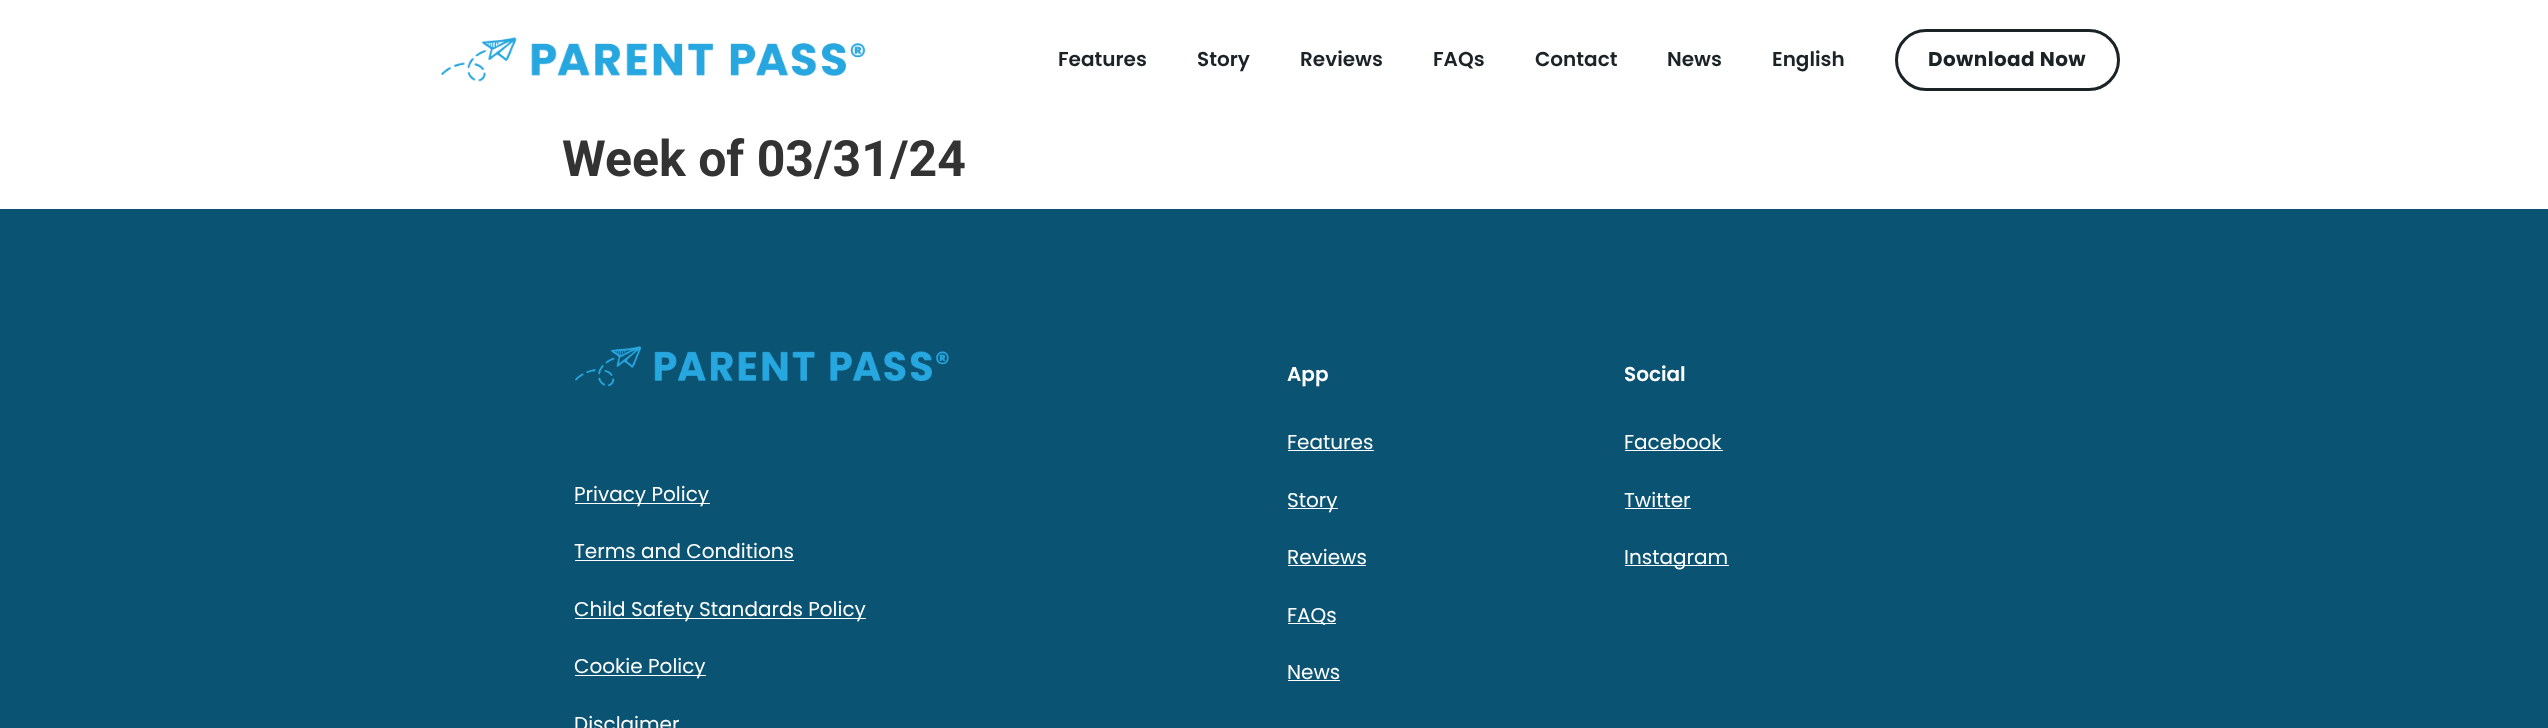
<svg xmlns="http://www.w3.org/2000/svg" xmlns:xlink="http://www.w3.org/1999/xlink" width="2548" height="728" viewBox="0 0 2548 728">
<style>
.cls-1{font:600 20px Poppins;fill:#1c2327}
.cls-2{font:bold 20px Poppins;letter-spacing:0.4px;fill:#1c2327}
.cls-3{font:bold 50px Roboto;fill:#333333}
.cls-4{font:20px Poppins;fill:#ffffff}
.cls-5{font:600 20px Poppins;fill:#ffffff}
</style>
<rect width="100%" height="100%" fill="#ffffff"/>
<image xlink:href="image0.png" x="441" y="37" width="424" height="45"/>
<rect fill="none" stroke="#1c2327" stroke-width="3" x="1896.5" y="30.5" width="222" height="59" rx="29.5"/>
<rect fill="#0a5372" x="0" y="209" width="2548" height="519"/>
<image xlink:href="image1.png" x="575" y="346" width="374" height="41"/>
<rect fill="#ffffff" x="575" y="503" width="135" height="1"/>
<rect fill="#ffffff" x="575" y="560" width="219" height="1"/>
<rect fill="#ffffff" x="575" y="618" width="291" height="1"/>
<rect fill="#ffffff" x="575" y="675" width="131" height="1"/>
<rect fill="#ffffff" x="1288" y="450" width="86" height="1"/>
<rect fill="#ffffff" x="1288" y="508" width="50" height="1"/>
<rect fill="#ffffff" x="1288" y="565" width="78" height="1"/>
<rect fill="#ffffff" x="1288" y="623" width="48" height="1"/>
<rect fill="#ffffff" x="1288" y="680" width="52" height="1"/>
<rect fill="#ffffff" x="1625" y="450" width="98" height="1"/>
<rect fill="#ffffff" x="1625" y="508" width="66" height="1"/>
<rect fill="#ffffff" x="1625" y="565" width="104" height="1"/>
<text class="cls-1" x="1058" y="66">Features</text>
<text class="cls-1" x="1197" y="66">Story</text>
<text class="cls-1" x="1300" y="66">Reviews</text>
<text class="cls-1" x="1433" y="66">FAQs</text>
<text class="cls-1" x="1535" y="66">Contact</text>
<text class="cls-1" x="1667" y="66">News</text>
<text class="cls-1" x="1772" y="66">English</text>
<text class="cls-2" x="1928" y="66">Download Now</text>
<text class="cls-3" x="562" y="176">Week of 03/31/24</text>
<text class="cls-4" x="574" y="501">Privacy Policy</text>
<text class="cls-4" x="574" y="558">Terms and Conditions</text>
<text class="cls-4" x="574" y="616">Child Safety Standards Policy</text>
<text class="cls-4" x="574" y="673">Cookie Policy</text>
<text class="cls-4" x="574" y="731">Disclaimer</text>
<text class="cls-5" x="1287" y="381">App</text>
<text class="cls-4" x="1287" y="449">Features</text>
<text class="cls-4" x="1287" y="507">Story</text>
<text class="cls-4" x="1287" y="564">Reviews</text>
<text class="cls-4" x="1287" y="622">FAQs</text>
<text class="cls-4" x="1287" y="679">News</text>
<text class="cls-5" x="1624" y="381">Social</text>
<text class="cls-4" x="1624" y="449">Facebook</text>
<text class="cls-4" x="1624" y="507">Twitter</text>
<text class="cls-4" x="1624" y="564">Instagram</text>
</svg>
